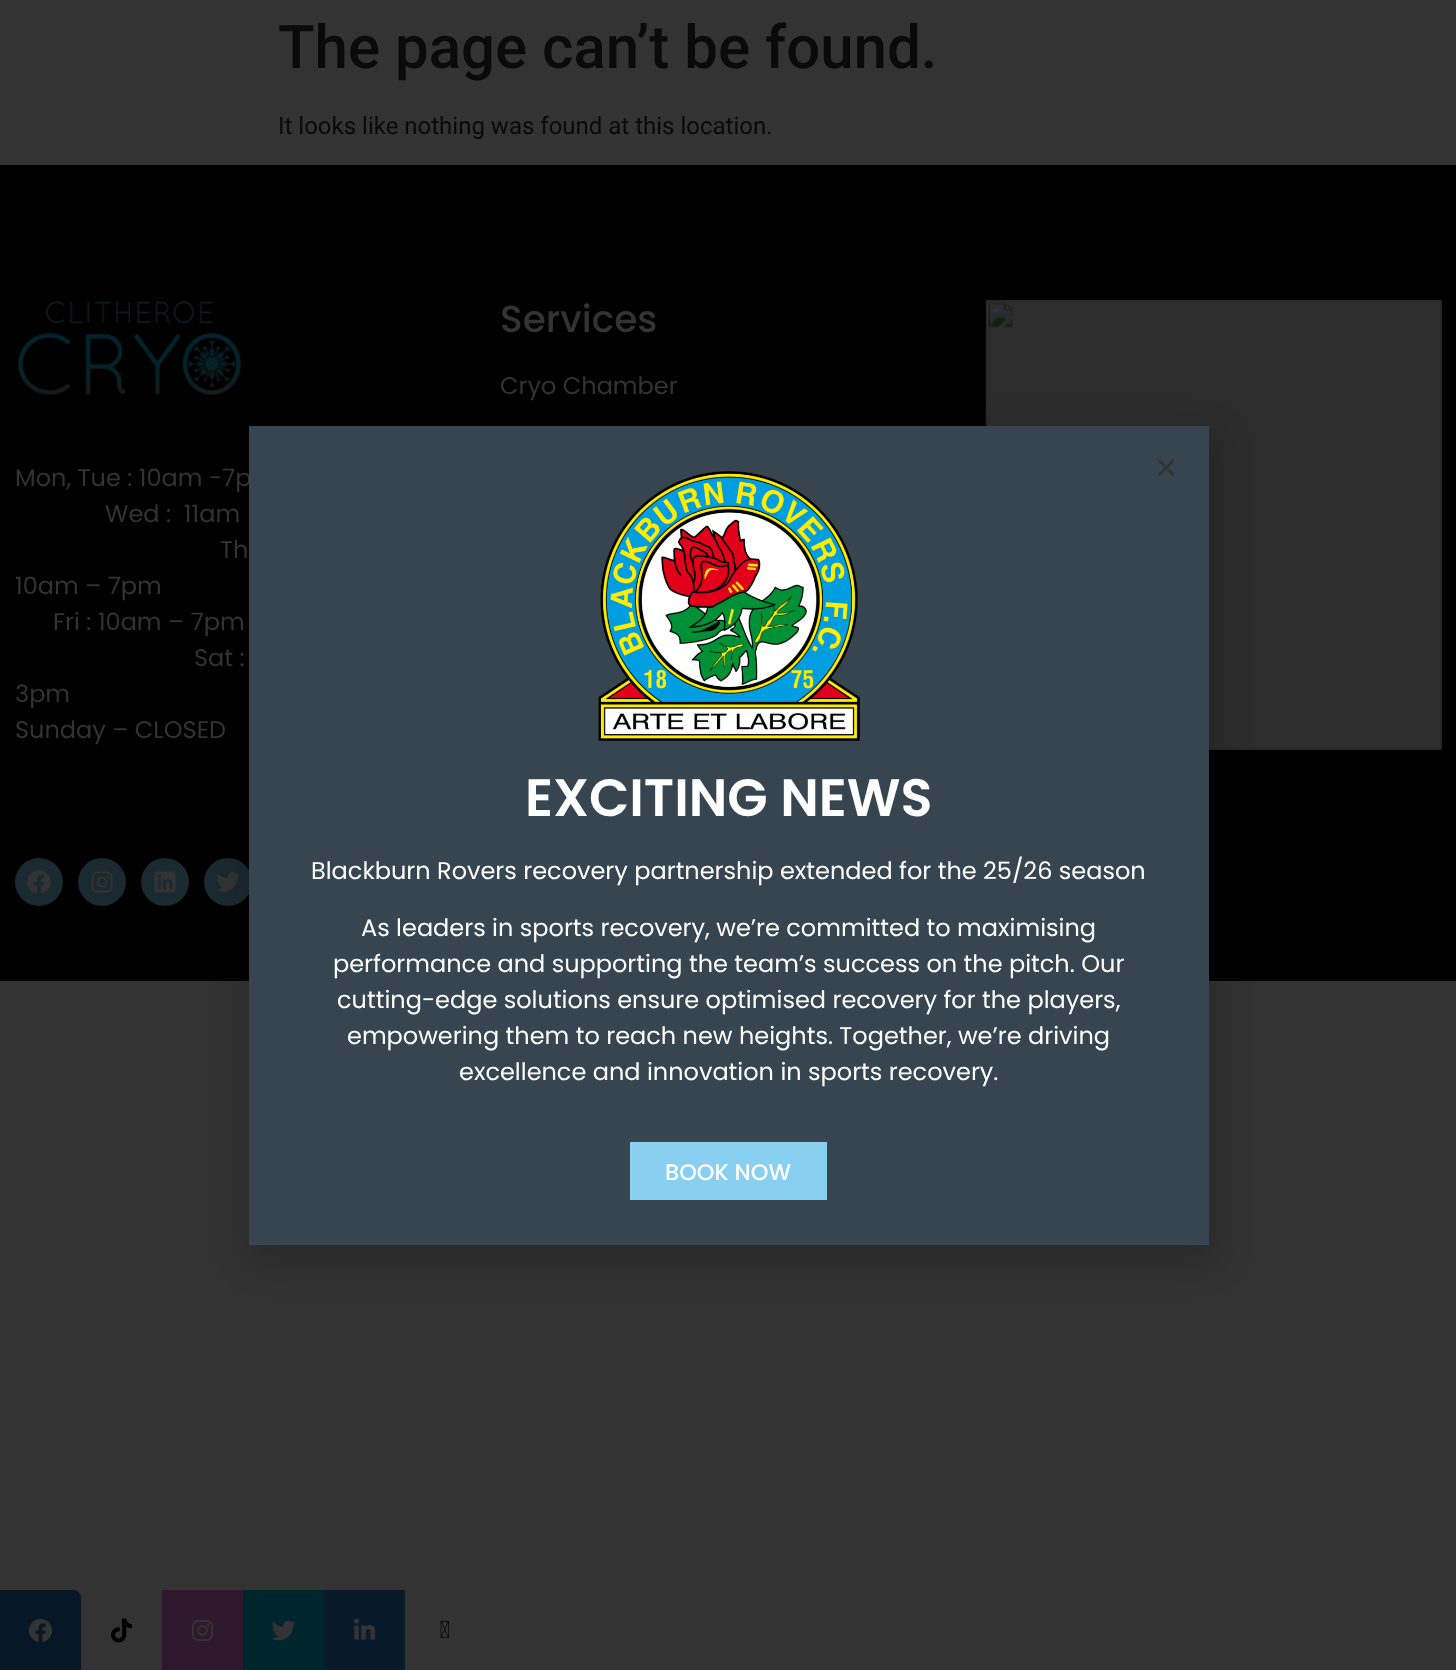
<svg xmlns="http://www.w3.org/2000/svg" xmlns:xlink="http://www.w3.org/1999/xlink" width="1456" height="1670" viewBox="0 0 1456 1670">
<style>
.cls-1{font:500 60px Roboto;fill:#0a0a0a}
.cls-2{font:24px Roboto;fill:#0a0a0a}
.cls-3{font:500 37.5px Poppins;fill:#333333}
.cls-4{font:24px Poppins;fill:#333333}
.cls-5{font:600 52.5px Poppins;fill:#ffffff}
.cls-6{font:24px Poppins;fill:#ffffff}
.cls-7{font:500 22.5px Poppins;fill:#ffffff}
</style>
<rect width="100%" height="100%" fill="#333333"/>
<rect fill="#000000" x="0" y="165" width="1456" height="816"/>
<image xlink:href="image0.png" x="985" y="300" width="457" height="450"/>
<image xlink:href="image1.png" x="18" y="301" width="224" height="95"/>
<circle fill="#1b2930" cx="39" cy="882" r="24"/>
<image xlink:href="image2.png" x="27" y="870" width="24" height="24"/>
<circle fill="#1b2930" cx="102" cy="882" r="24"/>
<image xlink:href="image3.png" x="91" y="871" width="22" height="22"/>
<circle fill="#1b2930" cx="165" cy="882" r="24"/>
<image xlink:href="image4.png" x="154" y="871" width="22" height="22"/>
<circle fill="#1b2930" cx="228" cy="882" r="24"/>
<image xlink:href="image5.png" x="216" y="872" width="24" height="20"/>
<rect fill="#000000" fill-opacity="0.2" filter="blur(17px)" x="248" y="434" width="969" height="828"/>
<path fill="#061726" d="M0 1590H73C77.5 1590 81 1593.5 81 1598V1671H0Z"/>
<image xlink:href="image8.png" x="28" y="1618" width="25" height="24"/>
<image xlink:href="image9.png" x="111" y="1618" width="21" height="25"/>
<rect fill="#2e182e" x="162" y="1590" width="81" height="80"/>
<image xlink:href="image10.png" x="192" y="1619" width="22" height="22"/>
<rect fill="#00262d" x="243" y="1590" width="81" height="80"/>
<image xlink:href="image11.png" x="271" y="1620" width="25" height="21"/>
<rect fill="#091a2b" x="324" y="1590" width="81" height="80"/>
<image xlink:href="image12.png" x="354" y="1618" width="21" height="22"/>
<image xlink:href="image13.png" x="440" y="1620" width="9" height="18"/>
<text class="cls-1" x="278" y="68">The page can’t be found.</text>
<text class="cls-2" x="278" y="134">It looks like nothing was found at this location.</text>
<text class="cls-3" x="500" y="332">Services</text>
<text class="cls-4" x="500" y="394">Cryo Chamber</text>
<text class="cls-4" x="15" y="486">Mon, Tue : 10am -7p</text>
<text class="cls-4" xml:space="preserve" x="105" y="522">Wed :  11am</text>
<text class="cls-4" x="220" y="558">Th</text>
<text class="cls-4" x="15" y="594">10am – 7pm</text>
<text class="cls-4" x="53" y="630">Fri : 10am – 7pm</text>
<text class="cls-4" x="194" y="666">Sat :</text>
<text class="cls-4"><tspan x="15" y="702">3pm</tspan><tspan x="15" y="738">Sunday – CLOSED</tspan></text>
<rect fill="#36454f" x="249" y="426" width="960" height="819"/>
<image xlink:href="image6.png" x="1158" y="459" width="16" height="17"/>
<image xlink:href="image7.png" x="598" y="471" width="262" height="270"/>
<text class="cls-5" x="525" y="816">EXCITING NEWS</text>
<text class="cls-6" x="311" y="879">Blackburn Rovers recovery partnership extended for the 25/26 season</text>
<text class="cls-6" x="361" y="936">As leaders in sports recovery, we’re committed to maximising</text>
<text class="cls-6" x="333" y="972">performance and supporting the team’s success on the pitch. Our</text>
<text class="cls-6" x="337" y="1008">cutting-edge solutions ensure optimised recovery for the players,</text>
<text class="cls-6" x="347" y="1044">empowering them to reach new heights. Together, we’re driving</text>
<text class="cls-6" x="459" y="1080">excellence and innovation in sports recovery.</text>
<rect fill="#89cff0" x="630" y="1142" width="197" height="58"/>
<text class="cls-7" x="665" y="1180">BOOK NOW</text>
</svg>
